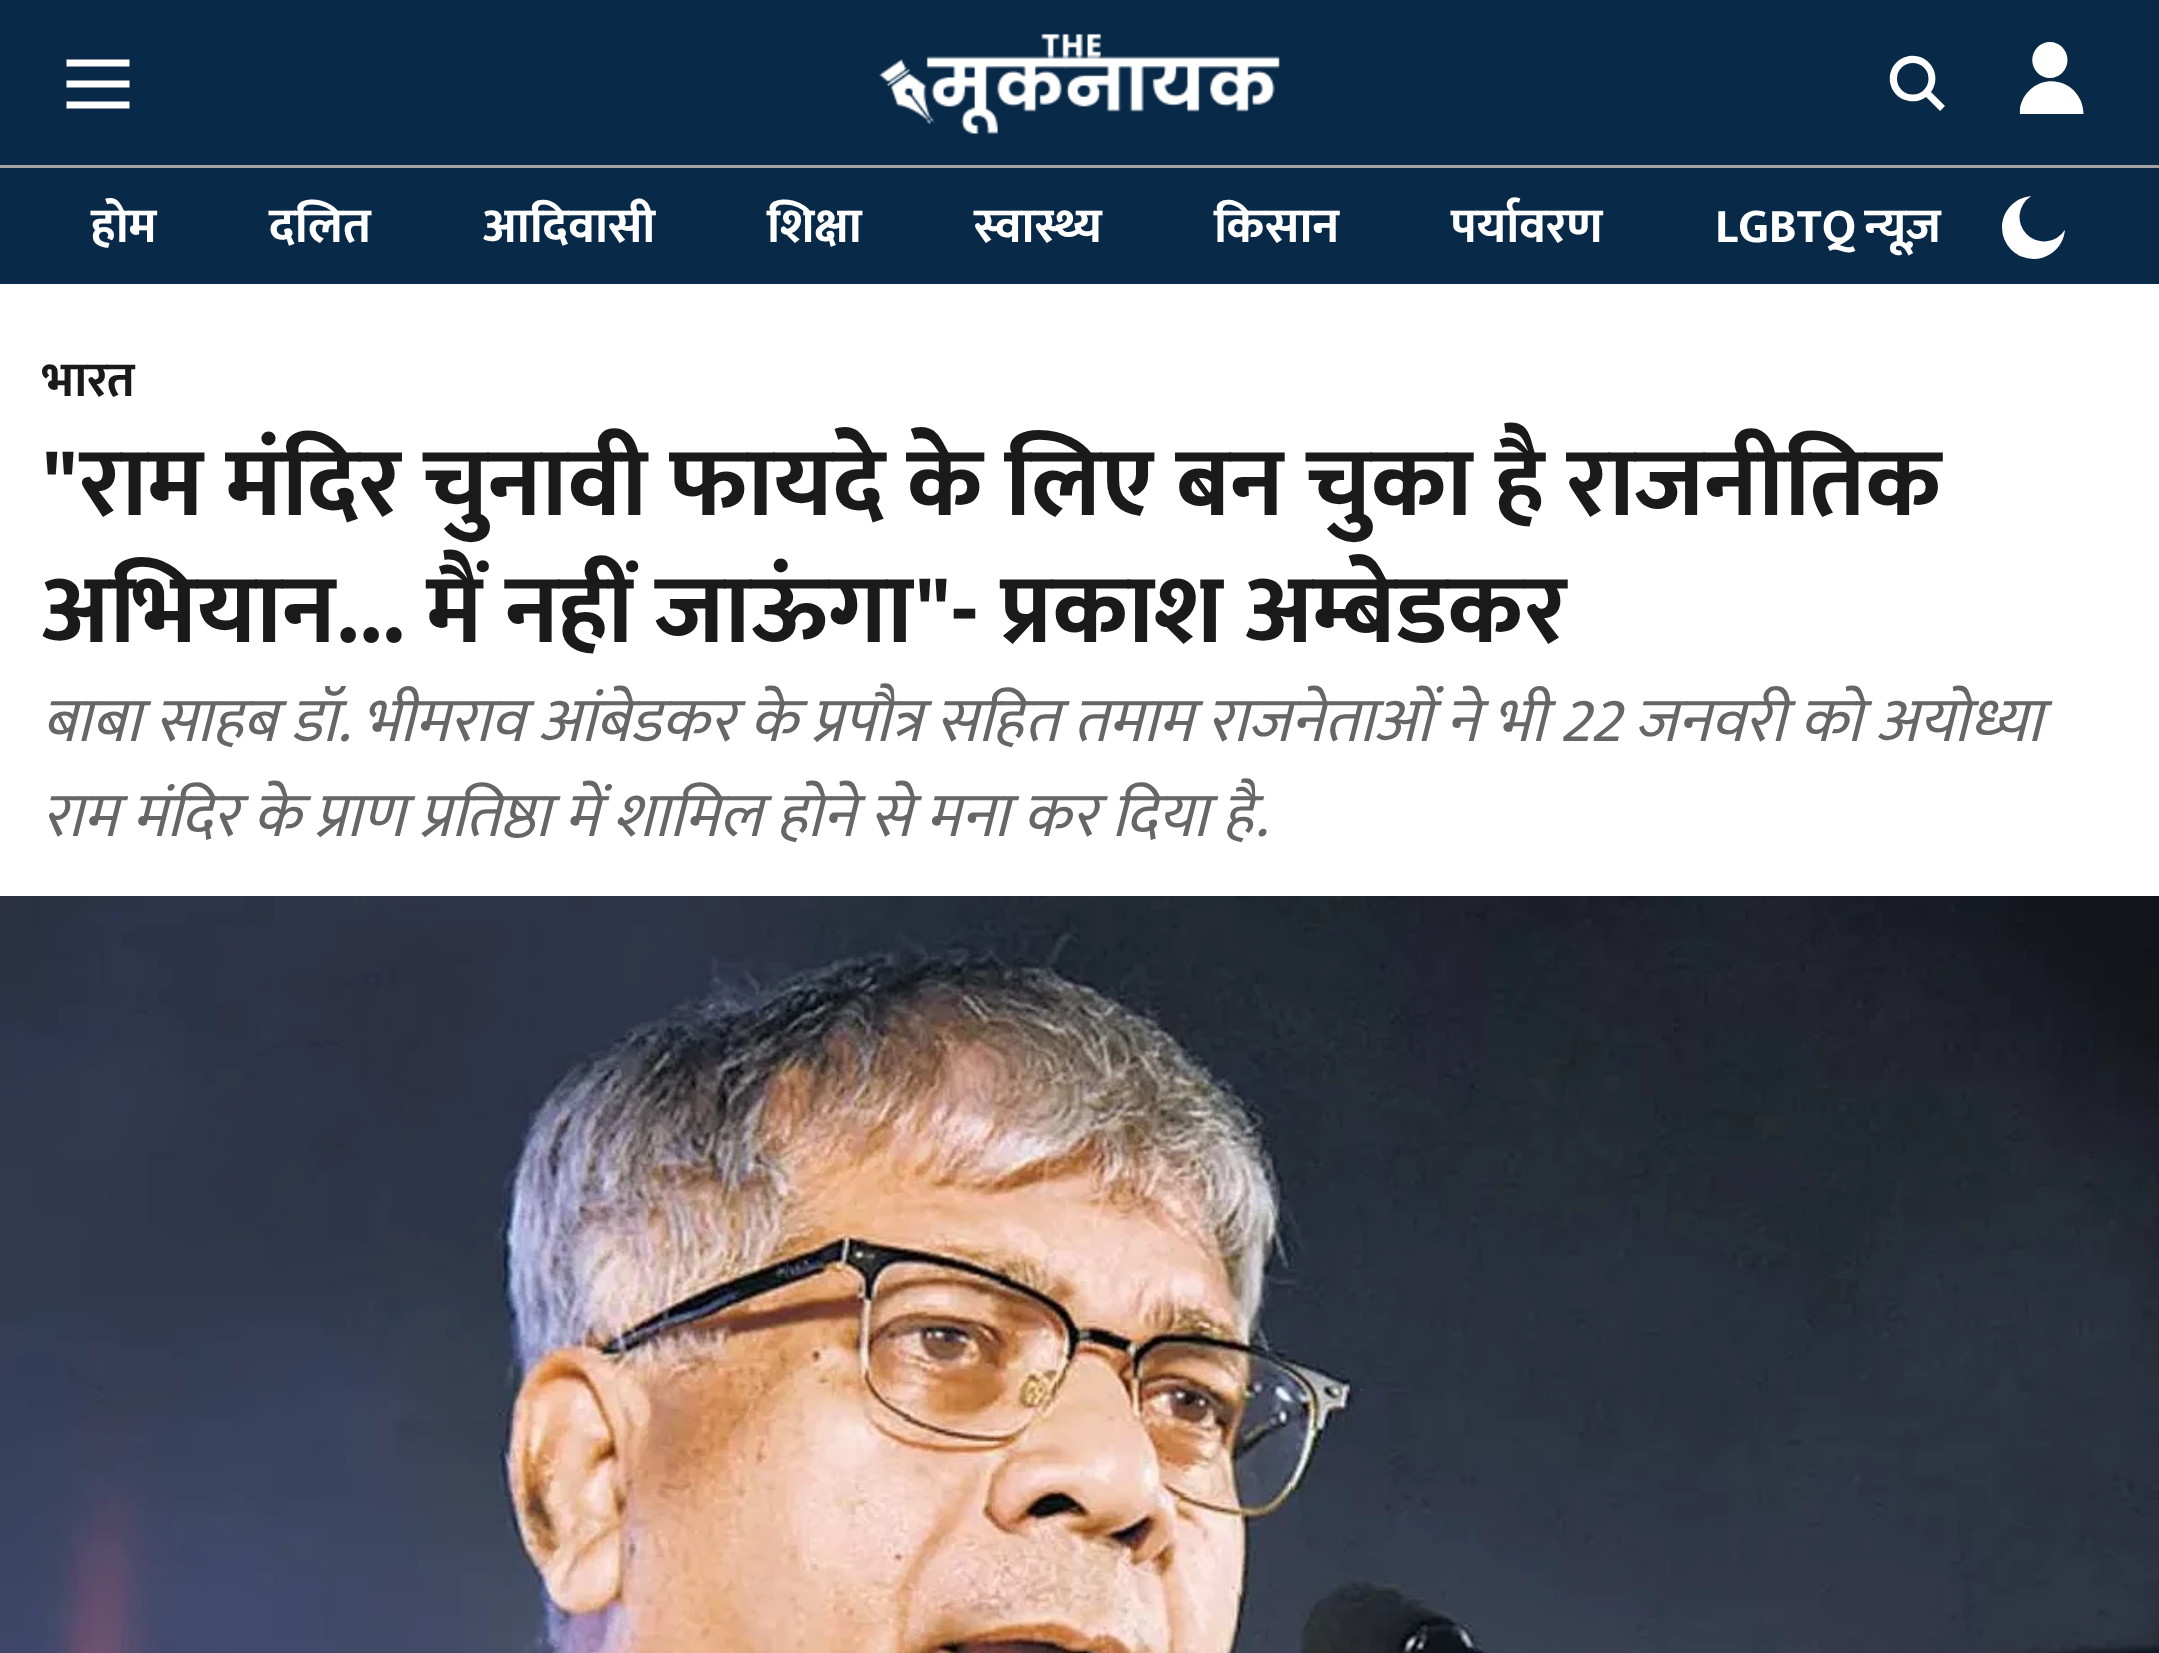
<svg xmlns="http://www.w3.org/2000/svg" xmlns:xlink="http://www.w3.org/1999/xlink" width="2159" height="1653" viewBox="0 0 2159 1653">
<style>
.cls-1{font:bold 49px Mukta;fill:#ffffff}
.cls-2{font:bold 49px Mukta;fill:#1a1a1a}
.cls-3{font:bold 98px Mukta;fill:#1a1a1a}
.cls-4{font:italic 63px Mukta;fill:#666666}
</style>
<defs>
<clipPath id="clip1"><rect x="35" y="168" width="1908" height="116"/></clipPath>
</defs>
<rect width="100%" height="100%" fill="#ffffff"/>
<rect fill="#082948" x="0" y="0" width="2159" height="165"/>
<rect fill="#a4a4a4" x="0" y="165" width="2159" height="3"/>
<image xlink:href="image0.png" x="66" y="59" width="64" height="50"/>
<image xlink:href="image1.png" x="879" y="33" width="401" height="102"/>
<image xlink:href="image2.png" x="1889" y="55" width="56" height="56"/>
<image xlink:href="image3.png" x="2019" y="42" width="65" height="72"/>
<rect fill="#082948" x="0" y="168" width="2159" height="116"/>
<image xlink:href="image4.png" x="2002" y="196" width="63" height="63"/>
<image xlink:href="image5.png" x="0" y="896" width="2159" height="757"/>
<text class="cls-1" x="91" y="242">होम</text>
<text class="cls-1" x="269" y="242">दलित</text>
<text class="cls-1" x="483" y="242">आदिवासी</text>
<text class="cls-1" x="767" y="242">शिक्षा</text>
<text class="cls-1" x="974" y="242">स्वास्थ्य</text>
<text class="cls-1" x="1214" y="242">किसान</text>
<text class="cls-1" x="1451" y="242">पर्यावरण</text>
<g clip-path="url(#clip1)">
<text class="cls-1" x="1715" y="242" word-spacing="-3">LGBTQ न्यूज़</text>
</g>
<text class="cls-2" x="42" y="396">भारत</text>
<text class="cls-3"><tspan x="42" y="515">"राम मंदिर चुनावी फायदे के लिए बन चुका है राजनीतिक</tspan><tspan x="42" y="642">अभियान... मैं नहीं जाऊंगा"- प्रकाश अम्बेडकर</tspan></text>
<text class="cls-4"><tspan x="42" y="741">बाबा साहब डॉ. भीमराव आंबेडकर के प्रपौत्र सहित तमाम राजनेताओं ने भी 22 जनवरी को अयोध्या</tspan><tspan x="42" y="836">राम मंदिर के प्राण प्रतिष्ठा में शामिल होने से मना कर दिया है.</tspan></text>
</svg>
